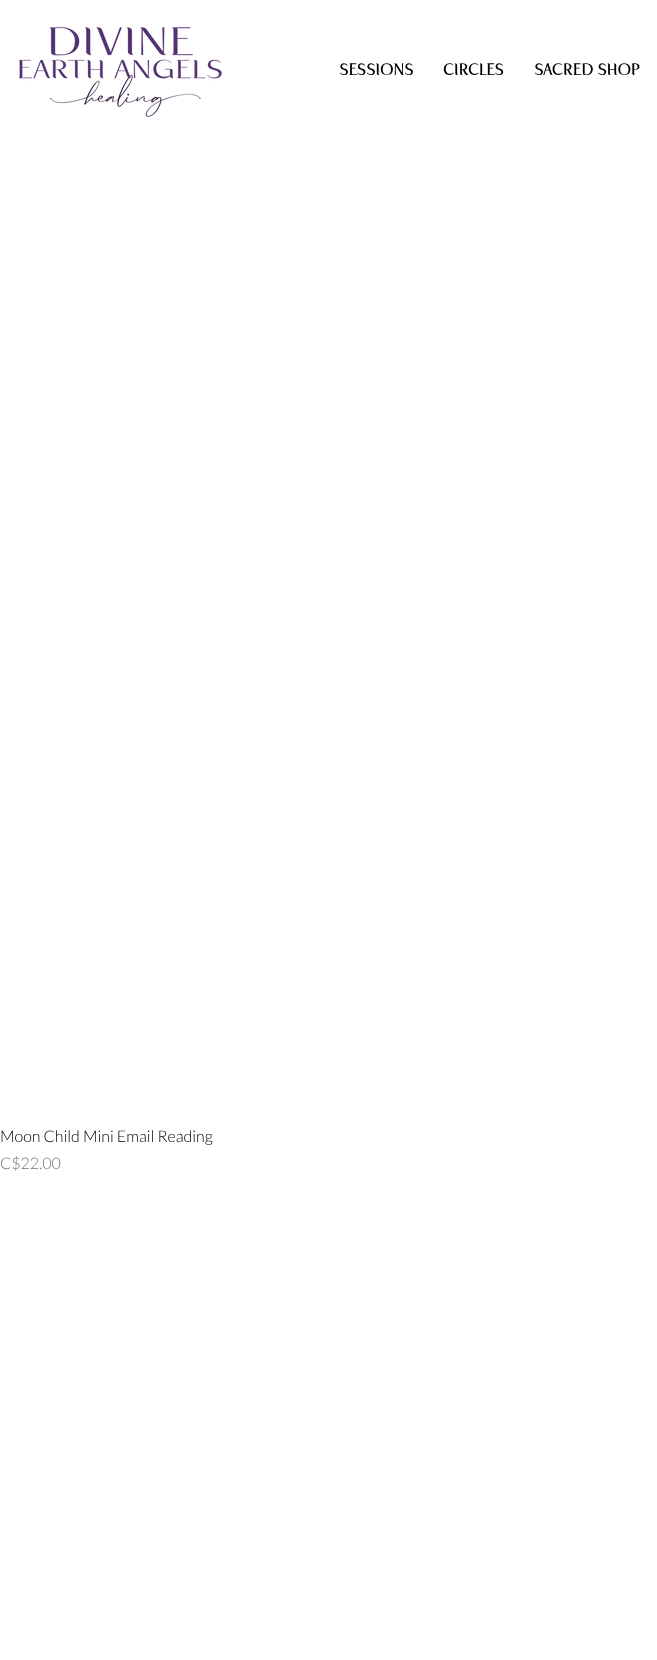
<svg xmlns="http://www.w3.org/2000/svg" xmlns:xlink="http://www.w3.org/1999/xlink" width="657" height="1660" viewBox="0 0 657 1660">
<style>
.cls-1{font:bold 16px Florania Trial;fill:#000000}
.cls-2{font:300 16px Lato;fill:#000000}
.cls-3{font:300 16px Lato;fill:#757575}
</style>
<rect width="100%" height="100%" fill="#ffffff"/>
<image xlink:href="image0.png" x="18" y="26" width="204" height="92"/>
<text class="cls-1" x="339" y="75">SESSIONS</text>
<text class="cls-1" x="443" y="75">CIRCLES</text>
<text class="cls-1" x="534" y="75">SACRED SHOP</text>
<text class="cls-2" x="0" y="1142">Moon Child Mini Email Reading</text>
<text class="cls-3" x="0" y="1169">C$22.00</text>
</svg>
